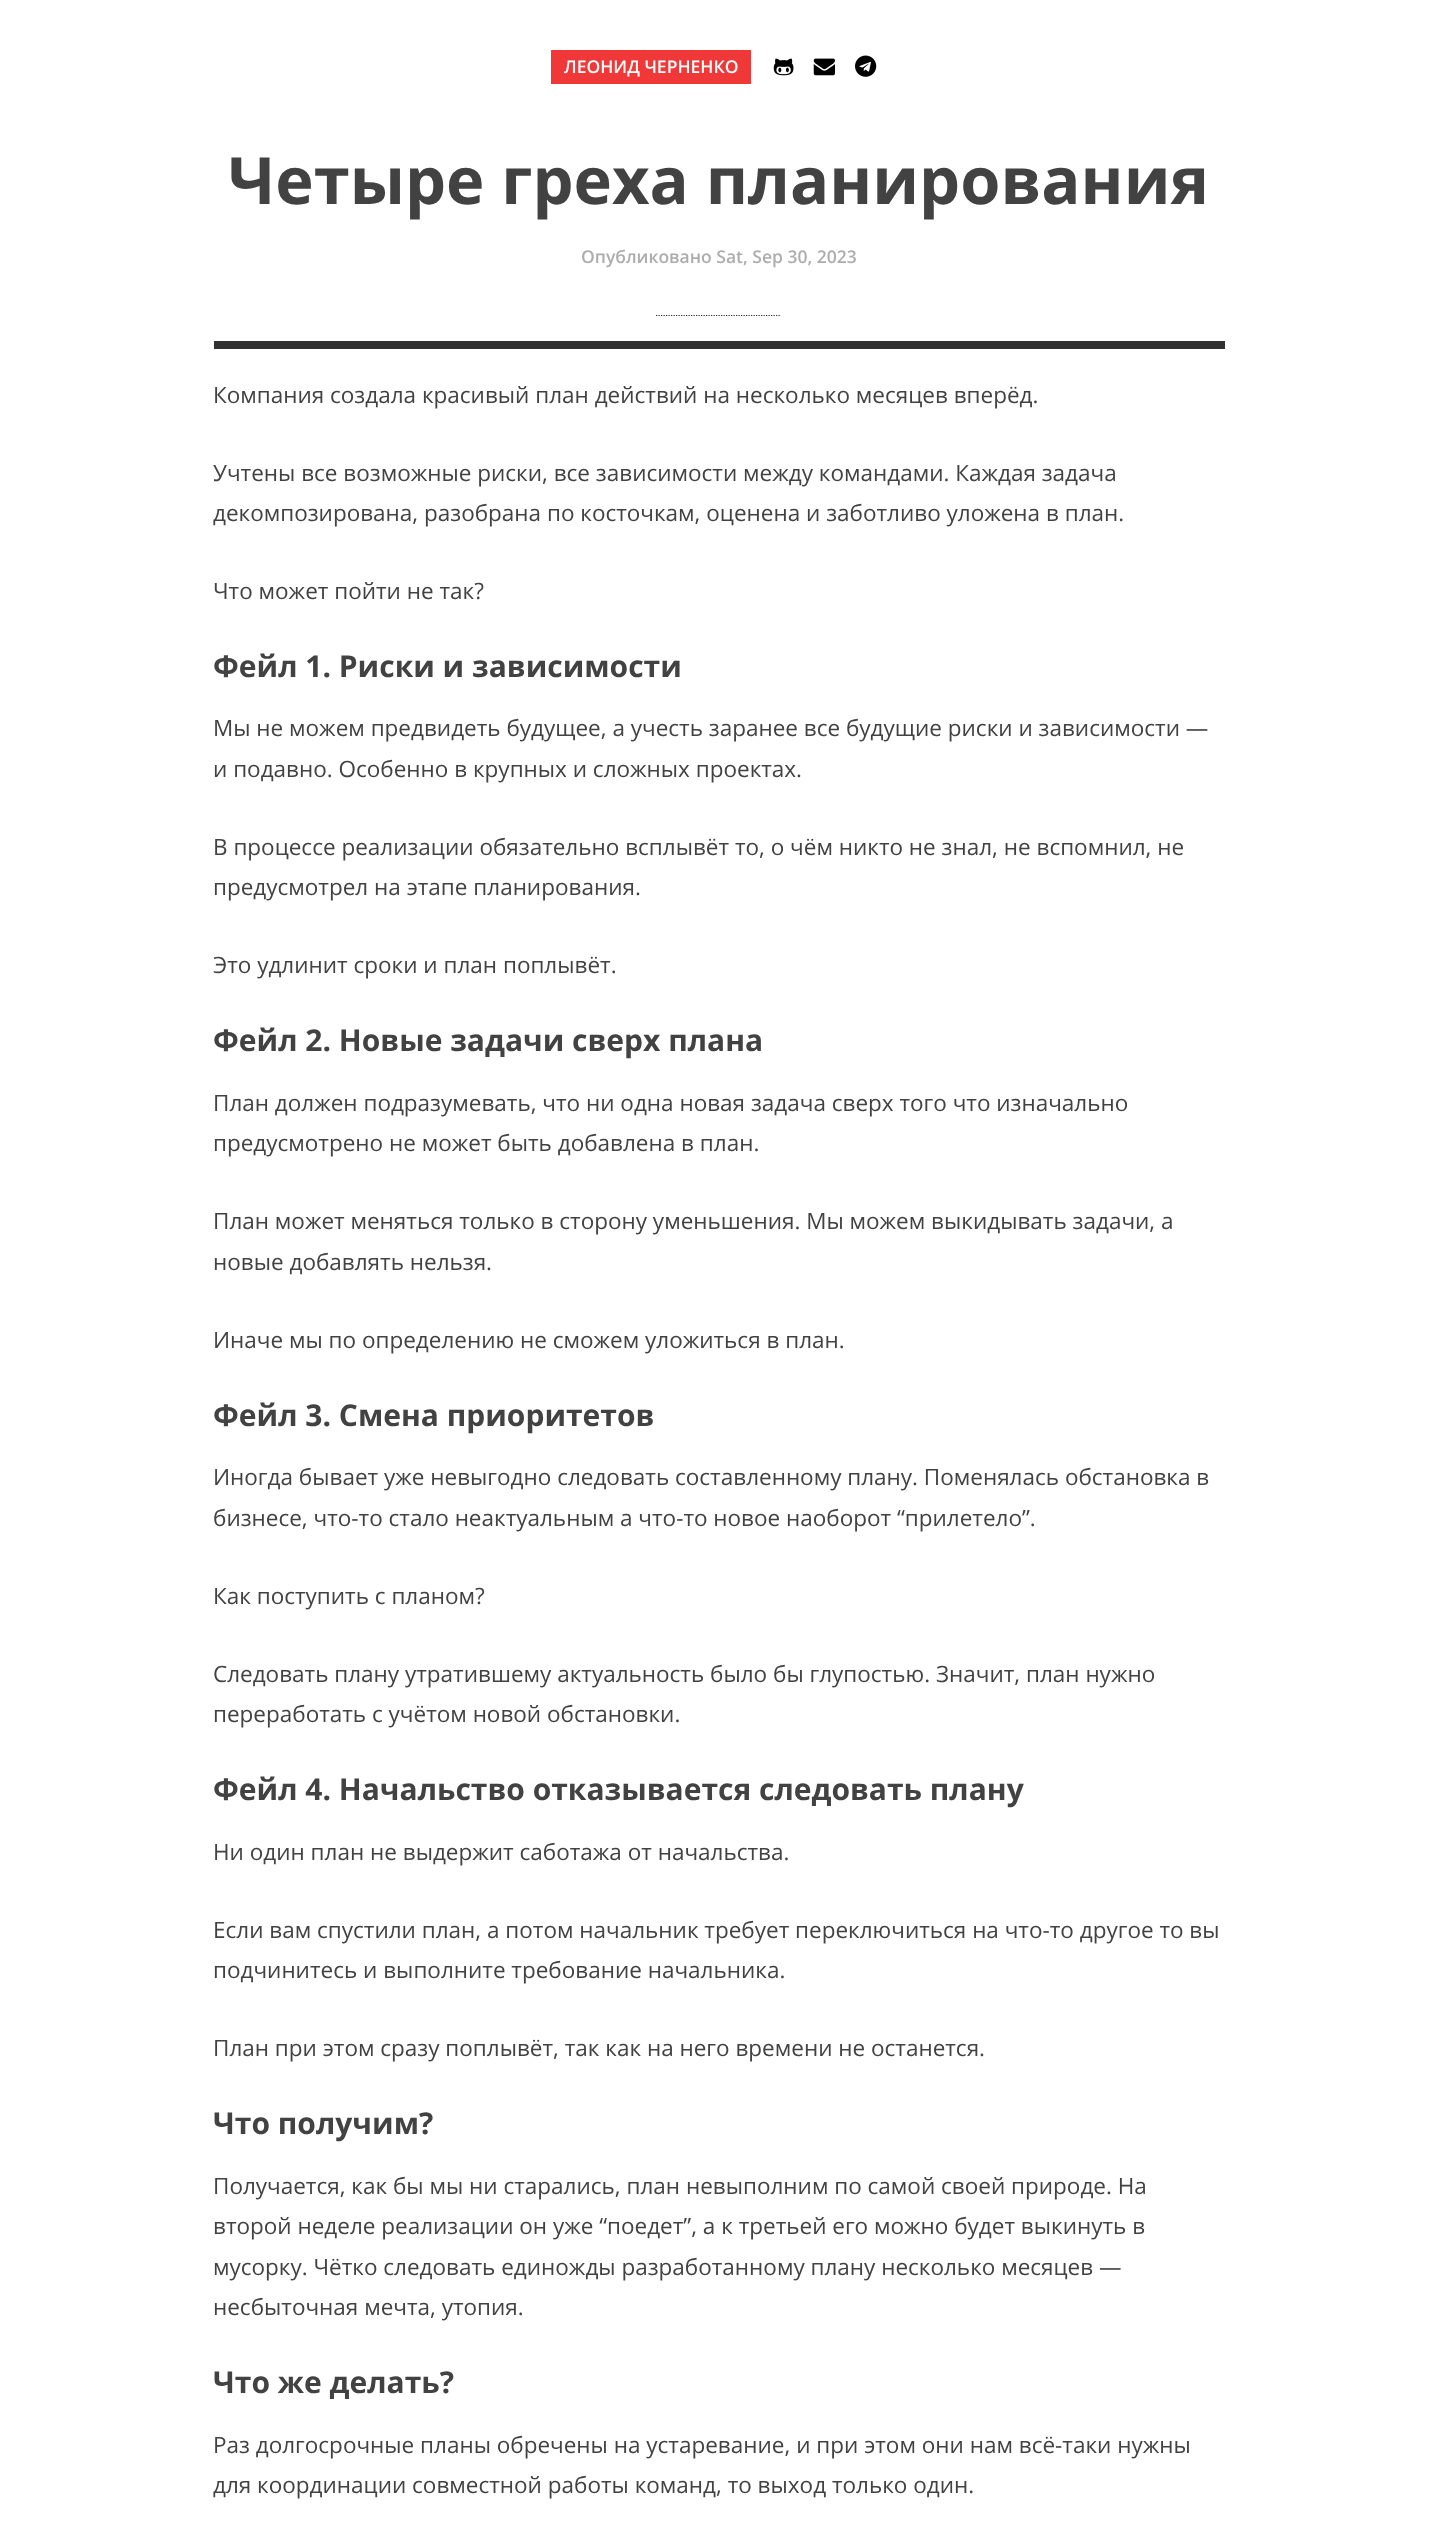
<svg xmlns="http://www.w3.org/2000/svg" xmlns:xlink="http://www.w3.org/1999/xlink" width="1437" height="2544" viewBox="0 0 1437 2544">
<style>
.cls-1{font:600 17.5px Open Sans;fill:#fefefe}
.cls-2{font:bold 65px Open Sans;fill:#424242}
.cls-3{font:600 17.5px Open Sans;fill:#aeadad}
.cls-4{font:22.5px Open Sans;fill:#424242}
.cls-5{font:bold 30px Open Sans;fill:#424242}
</style>
<rect width="100%" height="100%" fill="#ffffff"/>
<rect fill="#f03838" x="551" y="50" width="200" height="34"/>
<image xlink:href="image0.png" x="773" y="58" width="21" height="18"/>
<image xlink:href="image1.png" x="813" y="58" width="22" height="18"/>
<image xlink:href="image2.png" x="855" y="55" width="22" height="22"/>
<rect fill="#303030" x="214" y="341" width="1011" height="8"/>
<path fill="none" stroke="#303030" stroke-width="1.2" stroke-dasharray="1.25 1.25" d="M656 315.5H781"/>
<text class="cls-1" x="564" y="73">ЛЕОНИД ЧЕРНЕНКО</text>
<text class="cls-2" x="228" y="204">Четыре греха планирования</text>
<text class="cls-3" x="581" y="263">Опубликовано Sat, Sep 30, 2023</text>
<text class="cls-4" x="213" y="403">Компания создала красивый план действий на несколько месяцев вперëд.</text>
<text class="cls-4"><tspan x="213" y="481">Учтены все возможные риски, все зависимости между командами. Каждая задача</tspan><tspan x="213" y="521">декомпозирована, разобрана по косточкам, оценена и заботливо уложена в план.</tspan></text>
<text class="cls-4" x="213" y="599">Что может пойти не так?</text>
<text class="cls-5" x="213" y="677">Фейл 1. Риски и зависимости</text>
<text class="cls-4"><tspan x="213" y="736">Мы не можем предвидеть будущее, а учесть заранее все будущие риски и зависимости —</tspan><tspan x="213" y="777">и подавно. Особенно в крупных и сложных проектах.</tspan></text>
<text class="cls-4"><tspan x="213" y="855">В процессе реализации обязательно всплывëт то, о чëм никто не знал, не вспомнил, не</tspan><tspan x="213" y="895">предусмотрел на этапе планирования.</tspan></text>
<text class="cls-4" x="213" y="973">Это удлинит сроки и план поплывёт.</text>
<text class="cls-5" x="213" y="1051">Фейл 2. Новые задачи сверх плана</text>
<text class="cls-4"><tspan x="213" y="1111">План должен подразумевать, что ни одна новая задача сверх того что изначально</tspan><tspan x="213" y="1151">предусмотрено не может быть добавлена в план.</tspan></text>
<text class="cls-4"><tspan x="213" y="1229">План может меняться только в сторону уменьшения. Мы можем выкидывать задачи, а</tspan><tspan x="213" y="1270">новые добавлять нельзя.</tspan></text>
<text class="cls-4" x="213" y="1348">Иначе мы по определению не сможем уложиться в план.</text>
<text class="cls-5" x="213" y="1426">Фейл 3. Смена приоритетов</text>
<text class="cls-4"><tspan x="213" y="1485">Иногда бывает уже невыгодно следовать составленному плану. Поменялась обстановка в</tspan><tspan x="213" y="1526">бизнесе, что-то стало неактуальным а что-то новое наоборот “прилетело”.</tspan></text>
<text class="cls-4" x="213" y="1604">Как поступить с планом?</text>
<text class="cls-4"><tspan x="213" y="1682">Следовать плану утратившему актуальность было бы глупостью. Значит, план нужно</tspan><tspan x="213" y="1722">переработать с учётом новой обстановки.</tspan></text>
<text class="cls-5" x="213" y="1800">Фейл 4. Начальство отказывается следовать плану</text>
<text class="cls-4" x="213" y="1860">Ни один план не выдержит саботажа от начальства.</text>
<text class="cls-4"><tspan x="213" y="1938">Если вам спустили план, а потом начальник требует переключиться на что-то другое то вы</tspan><tspan x="213" y="1978">подчинитесь и выполните требование начальника.</tspan></text>
<text class="cls-4" x="213" y="2056">План при этом сразу поплывëт, так как на него времени не останется.</text>
<text class="cls-5" x="213" y="2134">Что получим?</text>
<text class="cls-4"><tspan x="213" y="2194">Получается, как бы мы ни старались, план невыполним по самой своей природе. На</tspan><tspan x="213" y="2234">второй неделе реализации он уже “поедет”, а к третьей его можно будет выкинуть в</tspan><tspan x="213" y="2275">мусорку. Чётко следовать единожды разработанному плану несколько месяцев —</tspan><tspan x="213" y="2315">несбыточная мечта, утопия.</tspan></text>
<text class="cls-5" x="213" y="2393">Что же делать?</text>
<text class="cls-4"><tspan x="213" y="2453">Раз долгосрочные планы обречены на устаревание, и при этом они нам всë-таки нужны</tspan><tspan x="213" y="2493">для координации совместной работы команд, то выход только один.</tspan></text>
</svg>
